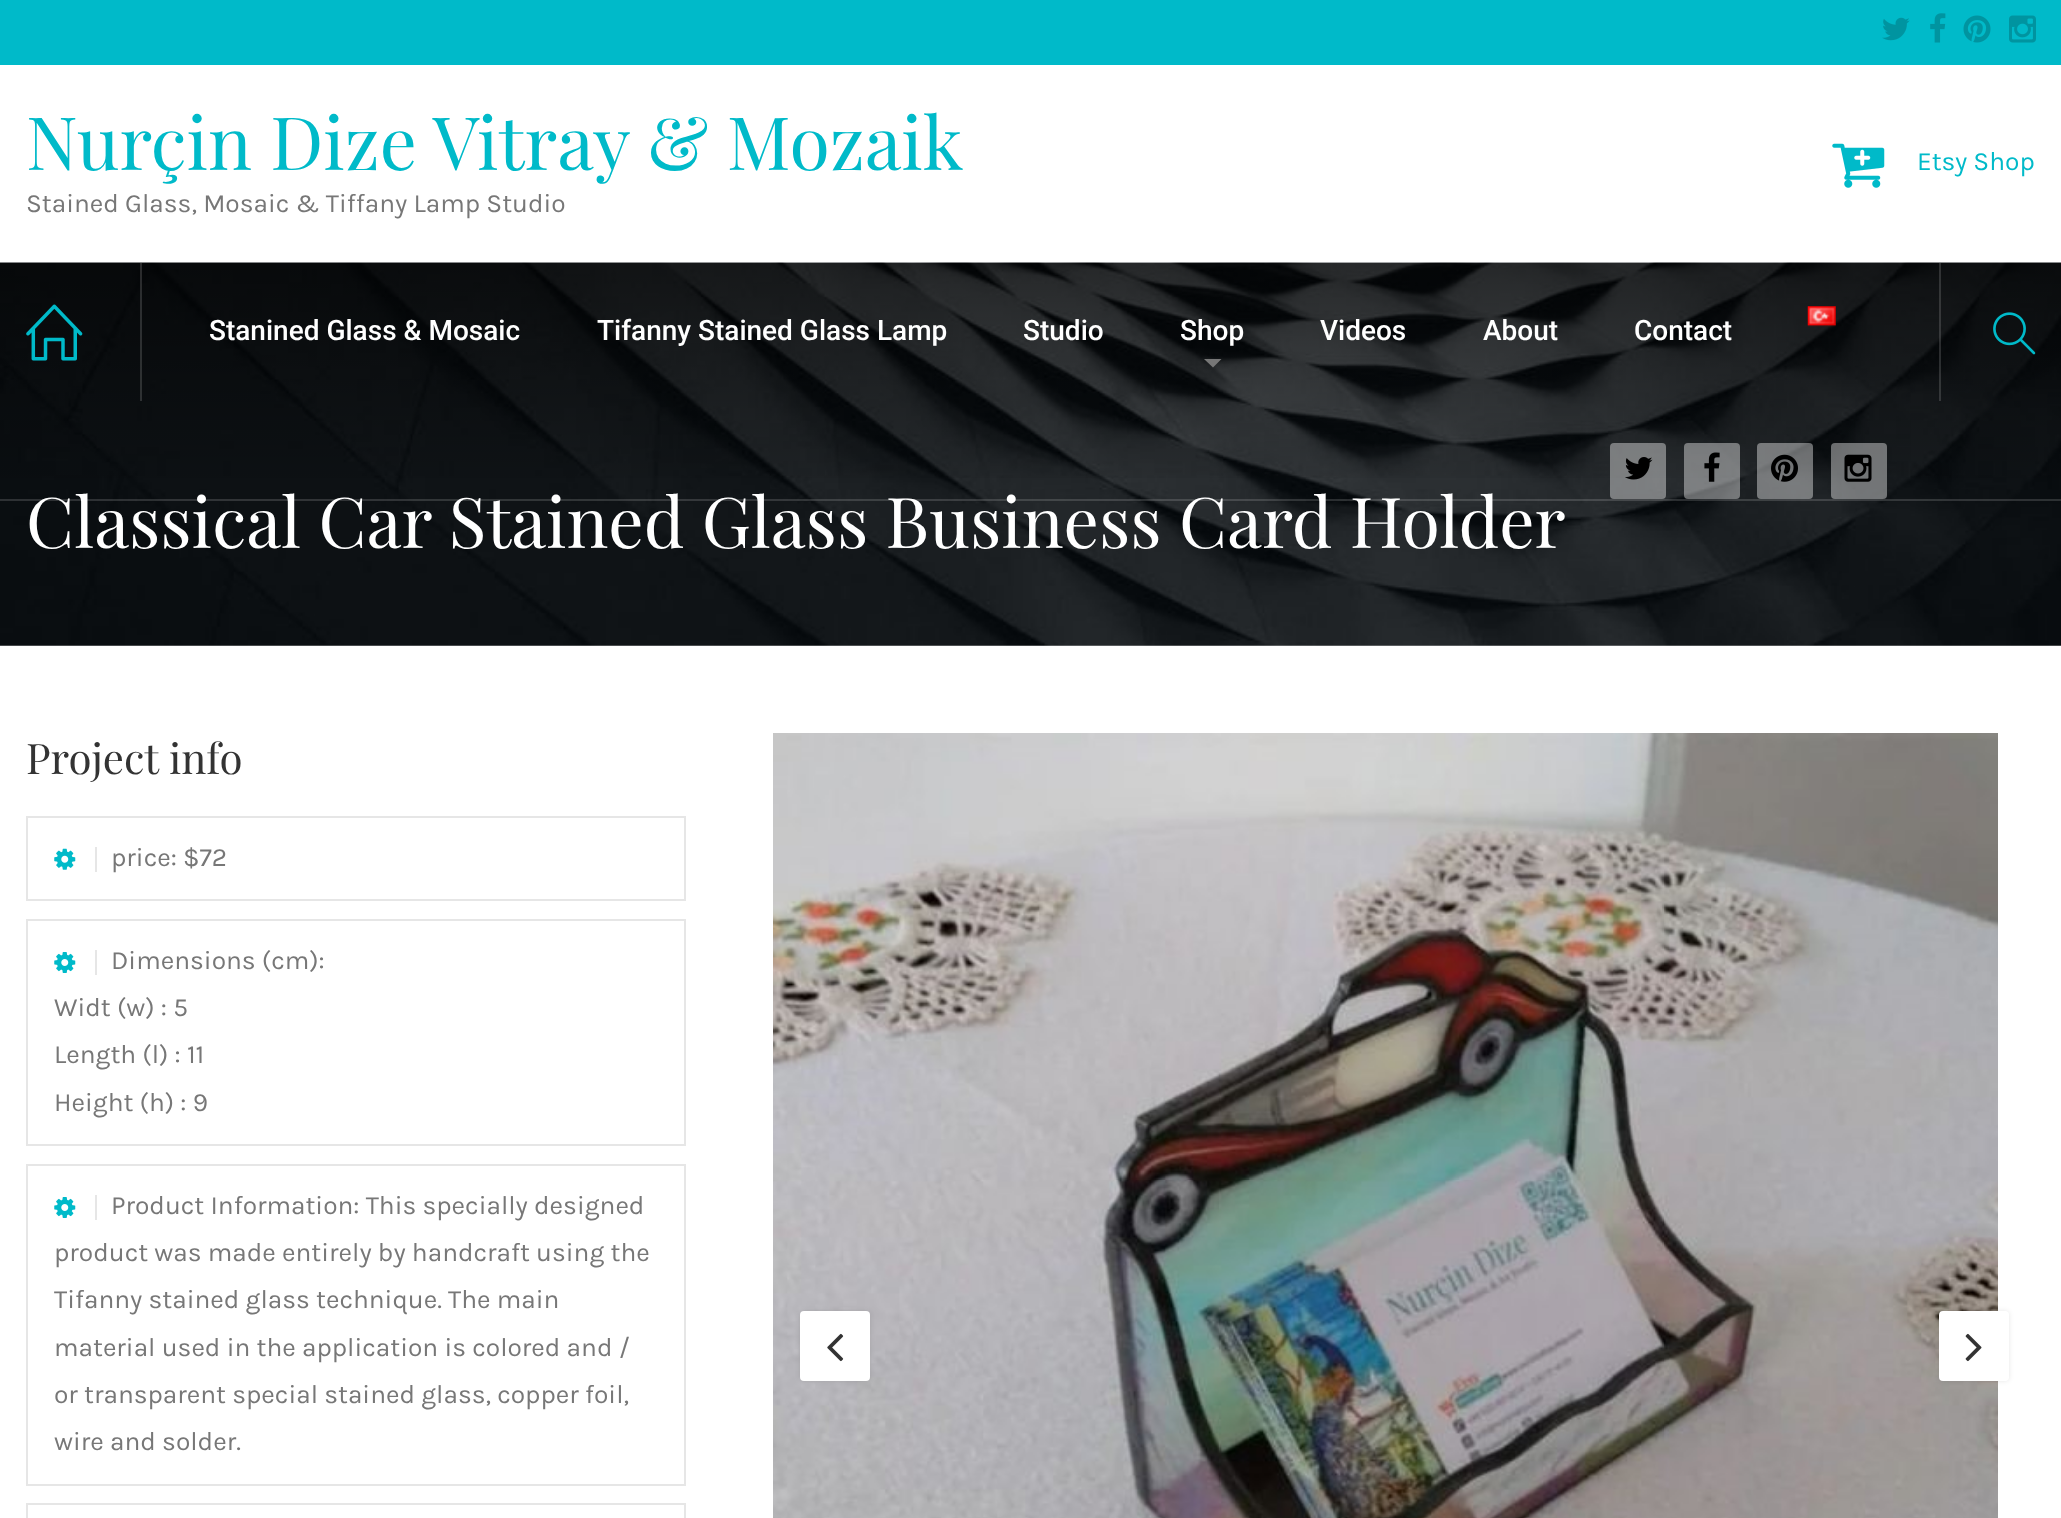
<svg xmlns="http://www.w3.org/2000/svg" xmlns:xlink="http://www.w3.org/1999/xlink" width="2061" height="1518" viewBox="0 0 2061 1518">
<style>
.cls-1{font:73.5px Playfair Display;fill:#00bac9}
.cls-2{font:26.25px Karla;fill:#777777}
.cls-3{font:26.25px Karla;fill:#00bac9}
.cls-4{font:500 28px Roboto;fill:#ffffff}
.cls-5{font:70px Playfair Display;fill:#ffffff}
.cls-6{font:42px Playfair Display;fill:#333333}
</style>
<defs>
<linearGradient id="g1" gradientUnits="userSpaceOnUse" x1="1031" y1="499" x2="1031" y2="263"><stop offset="0" stop-color="#000000" stop-opacity="0"/><stop offset="1" stop-color="#000000" stop-opacity="0.5"/></linearGradient>
</defs>
<rect width="100%" height="100%" fill="#ffffff"/>
<rect fill="#00bac9" x="0" y="0" width="2061" height="65"/>
<image xlink:href="image0.png" x="1882" y="17" width="28" height="24"/>
<image xlink:href="image1.png" x="1930" y="13" width="16" height="30"/>
<image xlink:href="image2.png" x="1963" y="15" width="28" height="28"/>
<image xlink:href="image3.png" x="2009" y="15" width="27" height="28"/>
<image xlink:href="image4.png" x="1832" y="143" width="53" height="45"/>
<image xlink:href="image12.png" x="0" y="262" width="2061" height="384"/>
<rect fill="url(#g1)" x="0" y="263" width="2061" height="215"/>
<rect fill="#ffffff" fill-opacity="0.15" x="140" y="263" width="2" height="138"/>
<image xlink:href="image5.png" x="26" y="304" width="57" height="57"/>
<path fill="#777777" d="M1204 359H1221.5L1213 367.5Z"/>
<image xlink:href="image6.png" x="1807" y="306" width="29" height="21"/>
<rect fill="#ffffff" fill-opacity="0.15" x="1939" y="263" width="2" height="138"/>
<image xlink:href="image7.png" x="1993" y="312" width="43" height="43"/>
<rect fill="#ffffff" fill-opacity="0.4" x="1610" y="443" width="56" height="56" rx="4"/>
<image xlink:href="image8.png" x="1625" y="457" width="28" height="23"/>
<rect fill="#ffffff" fill-opacity="0.4" x="1684" y="443" width="56" height="56" rx="4"/>
<image xlink:href="image9.png" x="1704" y="452" width="16" height="30"/>
<rect fill="#ffffff" fill-opacity="0.4" x="1757" y="443" width="56" height="56" rx="4"/>
<image xlink:href="image10.png" x="1771" y="454" width="27" height="28"/>
<rect fill="#ffffff" fill-opacity="0.4" x="1831" y="443" width="56" height="56" rx="4"/>
<image xlink:href="image11.png" x="1844" y="454" width="28" height="28"/>
<rect fill="none" stroke="#e6e6e6" stroke-width="2" x="27" y="817" width="658" height="83"/>
<rect fill="#e6e6e6" x="95" y="847" width="2" height="25"/>
<image xlink:href="image13.png" x="54" y="848" width="22" height="22"/>
<rect fill="none" stroke="#e6e6e6" stroke-width="2" x="27" y="920" width="658" height="225"/>
<rect fill="#e6e6e6" x="95" y="950" width="2" height="25"/>
<image xlink:href="image14.png" x="54" y="952" width="22" height="21"/>
<rect fill="none" stroke="#e6e6e6" stroke-width="2" x="27" y="1165" width="658" height="320"/>
<rect fill="#e6e6e6" x="95" y="1195" width="2" height="25"/>
<image xlink:href="image14.png" x="54" y="1197" width="22" height="21"/>
<rect fill="none" stroke="#e6e6e6" stroke-width="2" x="27" y="1504" width="658" height="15"/>
<image xlink:href="image15.png" x="773" y="733" width="1225" height="785"/>
<rect fill="#000000" fill-opacity="0.1" filter="blur(2.5px)" x="800" y="1311" width="70" height="70" rx="4"/>
<rect fill="#ffffff" x="800" y="1311" width="70" height="70" rx="4"/>
<image xlink:href="image16.png" x="827" y="1333" width="17" height="29"/>
<rect fill="#000000" fill-opacity="0.1" filter="blur(2.5px)" x="1939" y="1311" width="70" height="70" rx="4"/>
<rect fill="#ffffff" x="1939" y="1311" width="70" height="70" rx="4"/>
<image xlink:href="image17.png" x="1965" y="1333" width="17" height="29"/>
<text class="cls-1" x="26" y="170">Nurçin Dize Vitray &amp; Mozaik</text>
<text class="cls-2" x="26" y="212">Stained Glass, Mosaic &amp; Tiffany Lamp Studio</text>
<text class="cls-3" x="1917" y="170">Etsy Shop</text>
<text class="cls-4" x="209" y="340">Stanined Glass &amp; Mosaic</text>
<text class="cls-4" x="597" y="340">Tifanny Stained Glass Lamp</text>
<text class="cls-4" x="1023" y="340">Studio</text>
<text class="cls-4" x="1180" y="340">Shop</text>
<text class="cls-4" x="1320" y="340">Videos</text>
<text class="cls-4" x="1483" y="340">About</text>
<text class="cls-4" x="1634" y="340">Contact</text>
<text class="cls-5" x="26" y="548">Classical Car Stained Glass Business Card Holder</text>
<rect fill="#ffffff" fill-opacity="0.15" x="0" y="499" width="2061" height="2"/>
<text class="cls-6" x="26" y="774">Project info</text>
<text class="cls-2" x="111" y="866">price: $72</text>
<text class="cls-2" x="111" y="969">Dimensions (cm):</text>
<text class="cls-2"><tspan x="54" y="1016">Widt (w) : 5</tspan><tspan x="54" y="1063">Length (l) : 11</tspan><tspan x="54" y="1111">Height (h) : 9</tspan></text>
<text class="cls-2" x="111" y="1214">Product Information: This specially designed</text>
<text class="cls-2"><tspan x="54" y="1261">product was made entirely by handcraft using the</tspan><tspan x="54" y="1308">Tifanny stained glass technique. The main</tspan><tspan x="54" y="1356">material used in the application is colored and /</tspan><tspan x="54" y="1403">or transparent special stained glass, copper foil,</tspan><tspan x="54" y="1450">wire and solder.</tspan></text>
</svg>
